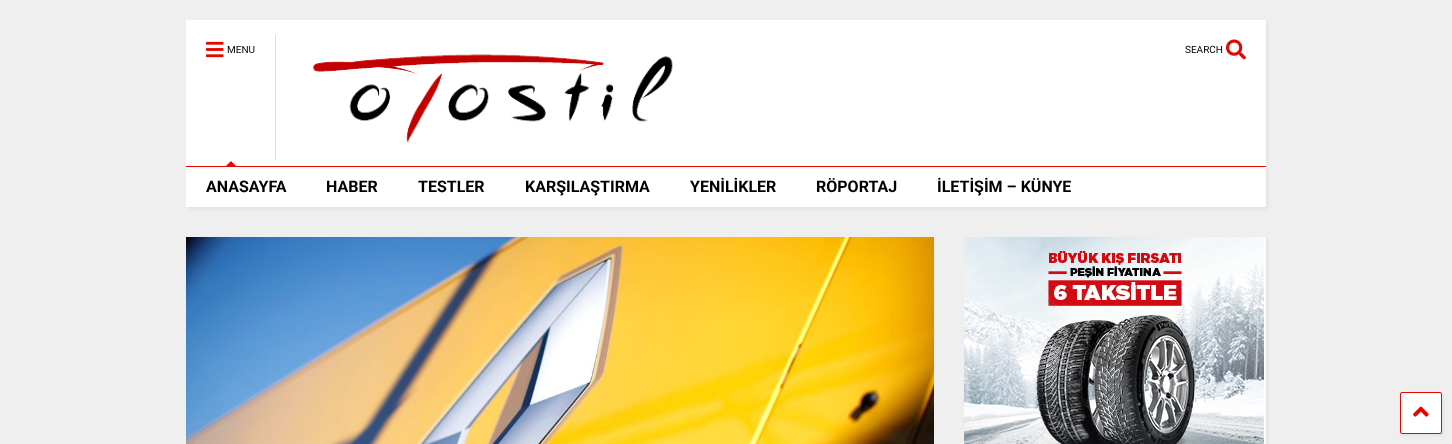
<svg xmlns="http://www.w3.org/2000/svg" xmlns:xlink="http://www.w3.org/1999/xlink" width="1452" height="444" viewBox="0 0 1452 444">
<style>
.cls-1{font:10px Roboto;fill:#000000}
.cls-2{font:bold 16px Roboto;fill:#000000}
</style>
<rect width="100%" height="100%" fill="#efefef"/>
<rect fill="#000000" fill-opacity="0.05" filter="blur(1.5px)" x="188" y="22" width="1080" height="187"/>
<rect fill="#ffffff" x="186" y="20" width="1080" height="187"/>
<image xlink:href="image0.png" x="206" y="41" width="18" height="17"/>
<path fill="#e20700" d="M236 166H226L231 161Z"/>
<rect fill="#dddddd" x="275" y="35" width="1" height="125"/>
<image xlink:href="image1.png" x="313" y="54" width="360" height="89"/>
<image xlink:href="image2.png" x="1226" y="39" width="20" height="21"/>
<rect fill="#e20700" x="186" y="166" width="1080" height="1"/>
<image xlink:href="image3.png" x="186" y="237" width="748" height="207"/>
<rect fill="#000000" fill-opacity="0.05" filter="blur(1.5px)" x="966" y="239" width="302" height="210"/>
<rect fill="#ffffff" x="1264" y="237" width="2" height="207"/>
<image xlink:href="image4.png" x="964" y="237" width="300" height="207"/>
<rect fill="#000000" fill-opacity="0.05" filter="blur(1.5px)" x="1402" y="394" width="42" height="42" rx="2"/>
<rect fill="#ffffff" stroke="#e20700" x="1400.5" y="392.5" width="41" height="41" rx="1.5"/>
<image xlink:href="image5.png" x="1413" y="406" width="16" height="11"/>
<text class="cls-1" x="227" y="53">MENU</text>
<text class="cls-1" x="1185" y="53">SEARCH</text>
<text class="cls-2" x="206" y="192">ANASAYFA</text>
<text class="cls-2" x="326" y="192">HABER</text>
<text class="cls-2" x="418" y="192">TESTLER</text>
<text class="cls-2" x="525" y="192">KARŞILAŞTIRMA</text>
<text class="cls-2" x="690" y="192">YENİLİKLER</text>
<text class="cls-2" x="816" y="192">RÖPORTAJ</text>
<text class="cls-2" x="937" y="192">İLETİŞİM – KÜNYE</text>
</svg>
